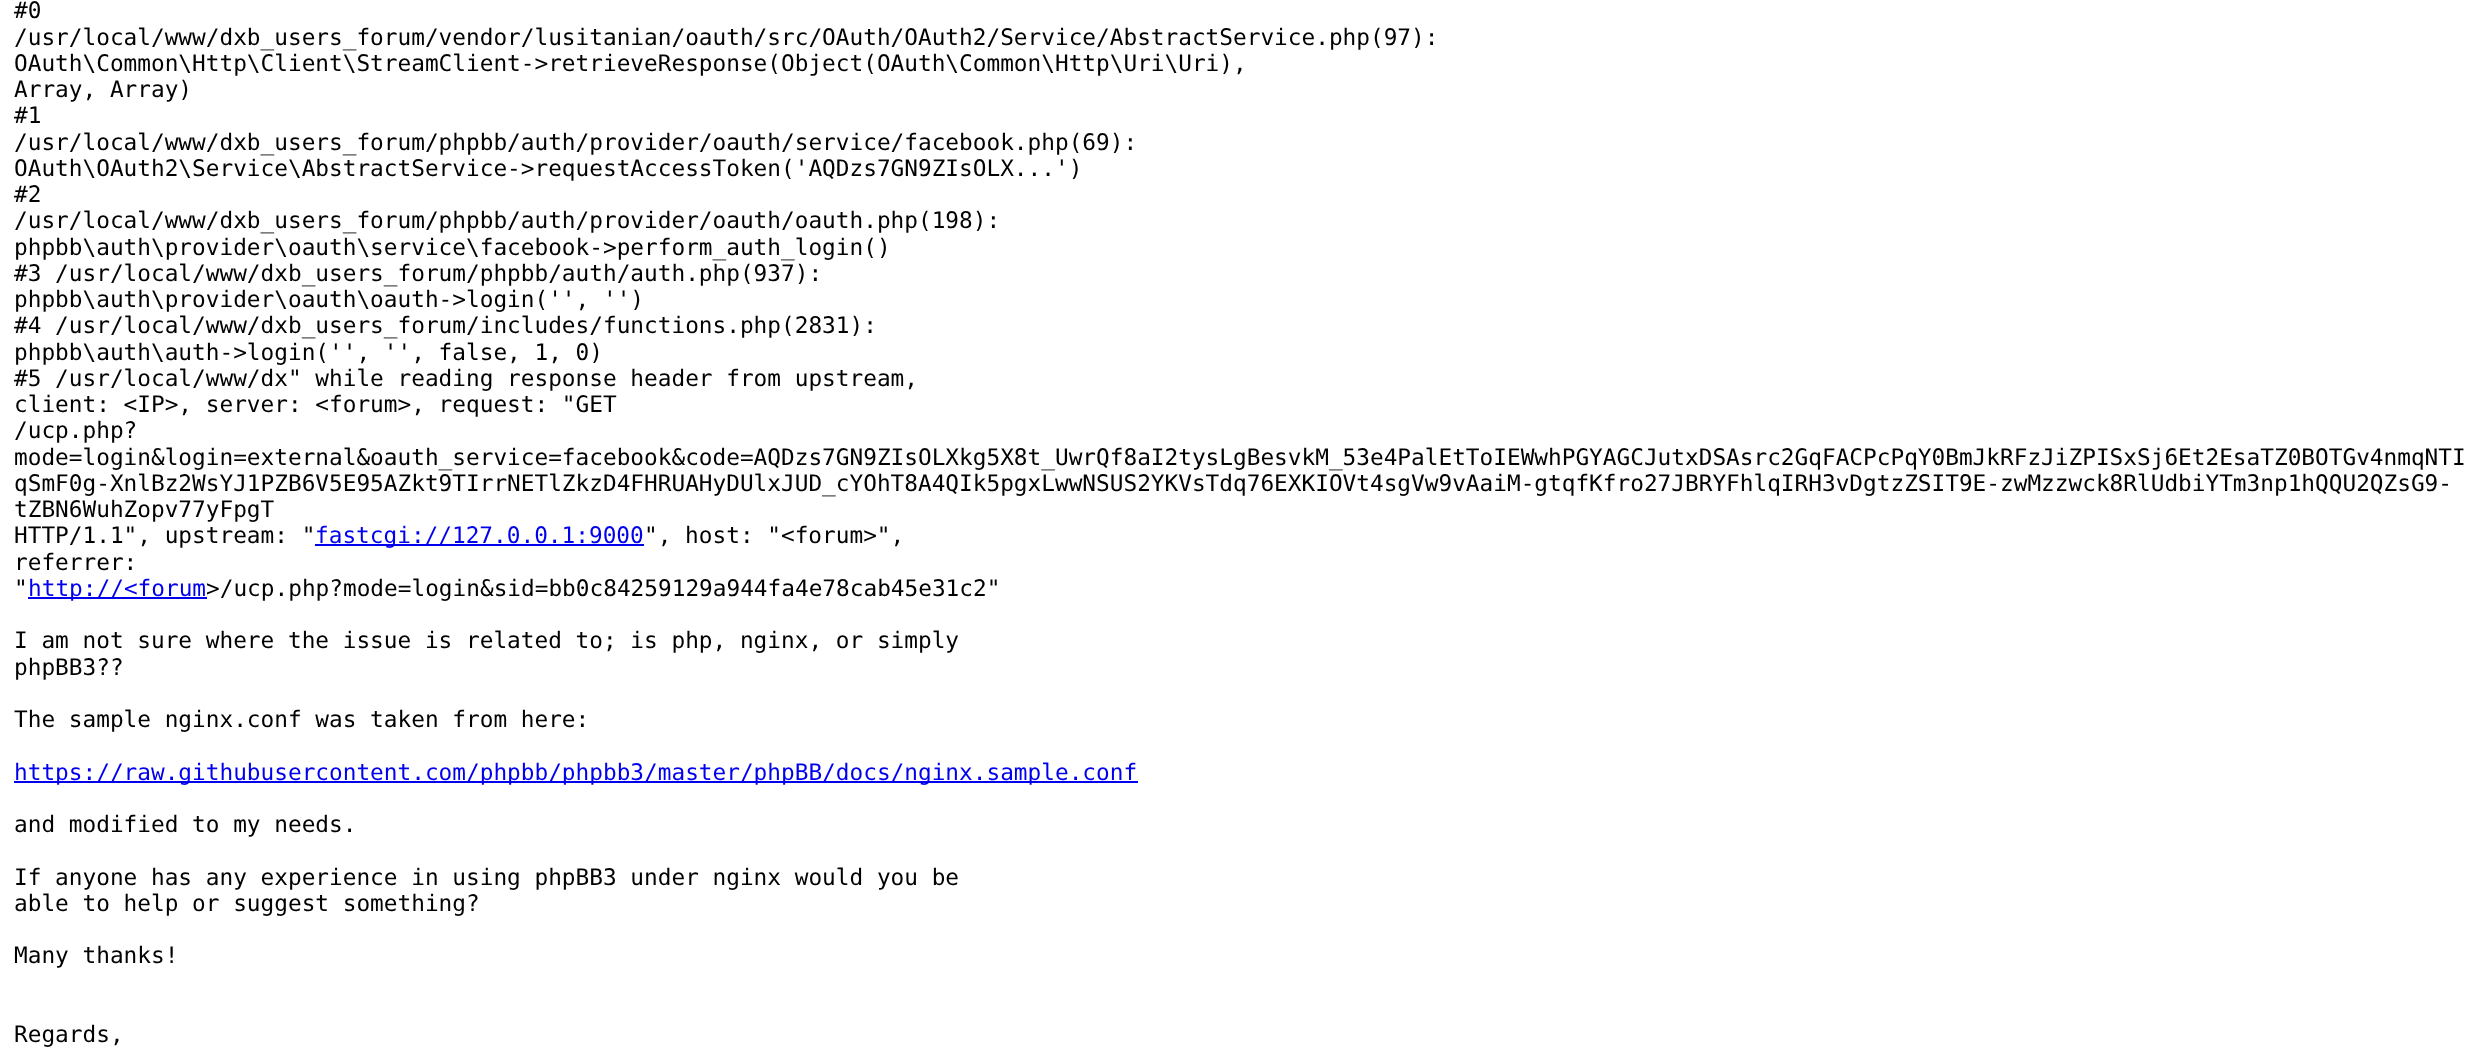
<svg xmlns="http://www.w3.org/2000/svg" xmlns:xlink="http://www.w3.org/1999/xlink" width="2470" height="1052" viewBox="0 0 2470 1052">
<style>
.cls-1{font:22.75px DejaVu Sans Mono;fill:#000000}
.cls-2{font:22.75px DejaVu Sans Mono;fill:#0000ee}
</style>
<rect width="100%" height="100%" fill="#ffffff"/>
<rect fill="#0000ee" x="315" y="544" width="329" height="2"/>
<rect fill="#0000ee" x="28" y="597" width="179" height="2"/>
<rect fill="#0000ee" x="14" y="781" width="1124" height="2"/>
<text class="cls-1"><tspan x="14" y="18">#0</tspan><tspan x="14" y="45">/usr/local/www/dxb_users_forum/vendor/lusitanian/oauth/src/OAuth/OAuth2/Service/AbstractService.php(97):</tspan><tspan x="14" y="71">OAuth\Common\Http\Client\StreamClient-&gt;retrieveResponse(Object(OAuth\Common\Http\Uri\Uri),</tspan><tspan x="14" y="97">Array, Array)</tspan><tspan x="14" y="123">#1</tspan><tspan x="14" y="150">/usr/local/www/dxb_users_forum/phpbb/auth/provider/oauth/service/facebook.php(69):</tspan><tspan x="14" y="176">OAuth\OAuth2\Service\AbstractService-&gt;requestAccessToken('AQDzs7GN9ZIsOLX...')</tspan><tspan x="14" y="202">#2</tspan><tspan x="14" y="228">/usr/local/www/dxb_users_forum/phpbb/auth/provider/oauth/oauth.php(198):</tspan><tspan x="14" y="255">phpbb\auth\provider\oauth\service\facebook-&gt;perform_auth_login()</tspan><tspan x="14" y="281">#3 /usr/local/www/dxb_users_forum/phpbb/auth/auth.php(937):</tspan><tspan x="14" y="307">phpbb\auth\provider\oauth\oauth-&gt;login('', '')</tspan><tspan x="14" y="333">#4 /usr/local/www/dxb_users_forum/includes/functions.php(2831):</tspan><tspan x="14" y="360">phpbb\auth\auth-&gt;login('', '', false, 1, 0)</tspan><tspan x="14" y="386">#5 /usr/local/www/dx" while reading response header from upstream,</tspan><tspan x="14" y="412">client: &lt;IP&gt;, server: &lt;forum&gt;, request: "GET</tspan><tspan x="14" y="438">/ucp.php?</tspan><tspan x="14" y="465">mode=login&amp;login=external&amp;oauth_service=facebook&amp;code=AQDzs7GN9ZIsOLXkg5X8t_UwrQf8aI2tysLgBesvkM_53e4PalEtToIEWwhPGYAGCJutxDSAsrc2GqFACPcPqY0BmJkRFzJiZPISxSj6Et2EsaTZ0BOTGv4nmqNTI</tspan><tspan x="14" y="491">qSmF0g-XnlBz2WsYJ1PZB6V5E95AZkt9TIrrNETlZkzD4FHRUAHyDUlxJUD_cYOhT8A4QIk5pgxLwwNSUS2YKVsTdq76EXKIOVt4sgVw9vAaiM-gtqfKfro27JBRYFhlqIRH3vDgtzZSIT9E-zwMzzwck8RlUdbiYTm3np1hQQU2QZsG9-</tspan><tspan x="14" y="517">tZBN6WuhZopv77yFpgT</tspan><tspan x="14" y="543">HTTP/1.1", upstream: "</tspan></text>
<text class="cls-2" x="315" y="543">fastcgi://127.0.0.1:9000</text>
<text class="cls-1" x="644" y="543">", host: "&lt;forum&gt;",</text>
<text class="cls-1"><tspan x="14" y="570">referrer:</tspan><tspan x="14" y="596">"</tspan></text>
<text class="cls-2" x="28" y="596">http://&lt;forum</text>
<text class="cls-1" x="206" y="596">&gt;/ucp.php?mode=login&amp;sid=bb0c84259129a944fa4e78cab45e31c2"</text>
<text class="cls-1"><tspan x="14" y="648">I am not sure where the issue is related to; is php, nginx, or simply</tspan><tspan x="14" y="675">phpBB3??</tspan></text>
<text class="cls-1" x="14" y="727">The sample nginx.conf was taken from here:</text>
<text class="cls-2" x="14" y="780">https://raw.githubusercontent.com/phpbb/phpbb3/master/phpBB/docs/nginx.sample.conf</text>
<text class="cls-1" x="14" y="832">and modified to my needs.</text>
<text class="cls-1"><tspan x="14" y="885">If anyone has any experience in using phpBB3 under nginx would you be</tspan><tspan x="14" y="911">able to help or suggest something?</tspan></text>
<text class="cls-1" x="14" y="963">Many thanks!</text>
<text class="cls-1" x="14" y="1042">Regards,</text>
</svg>
